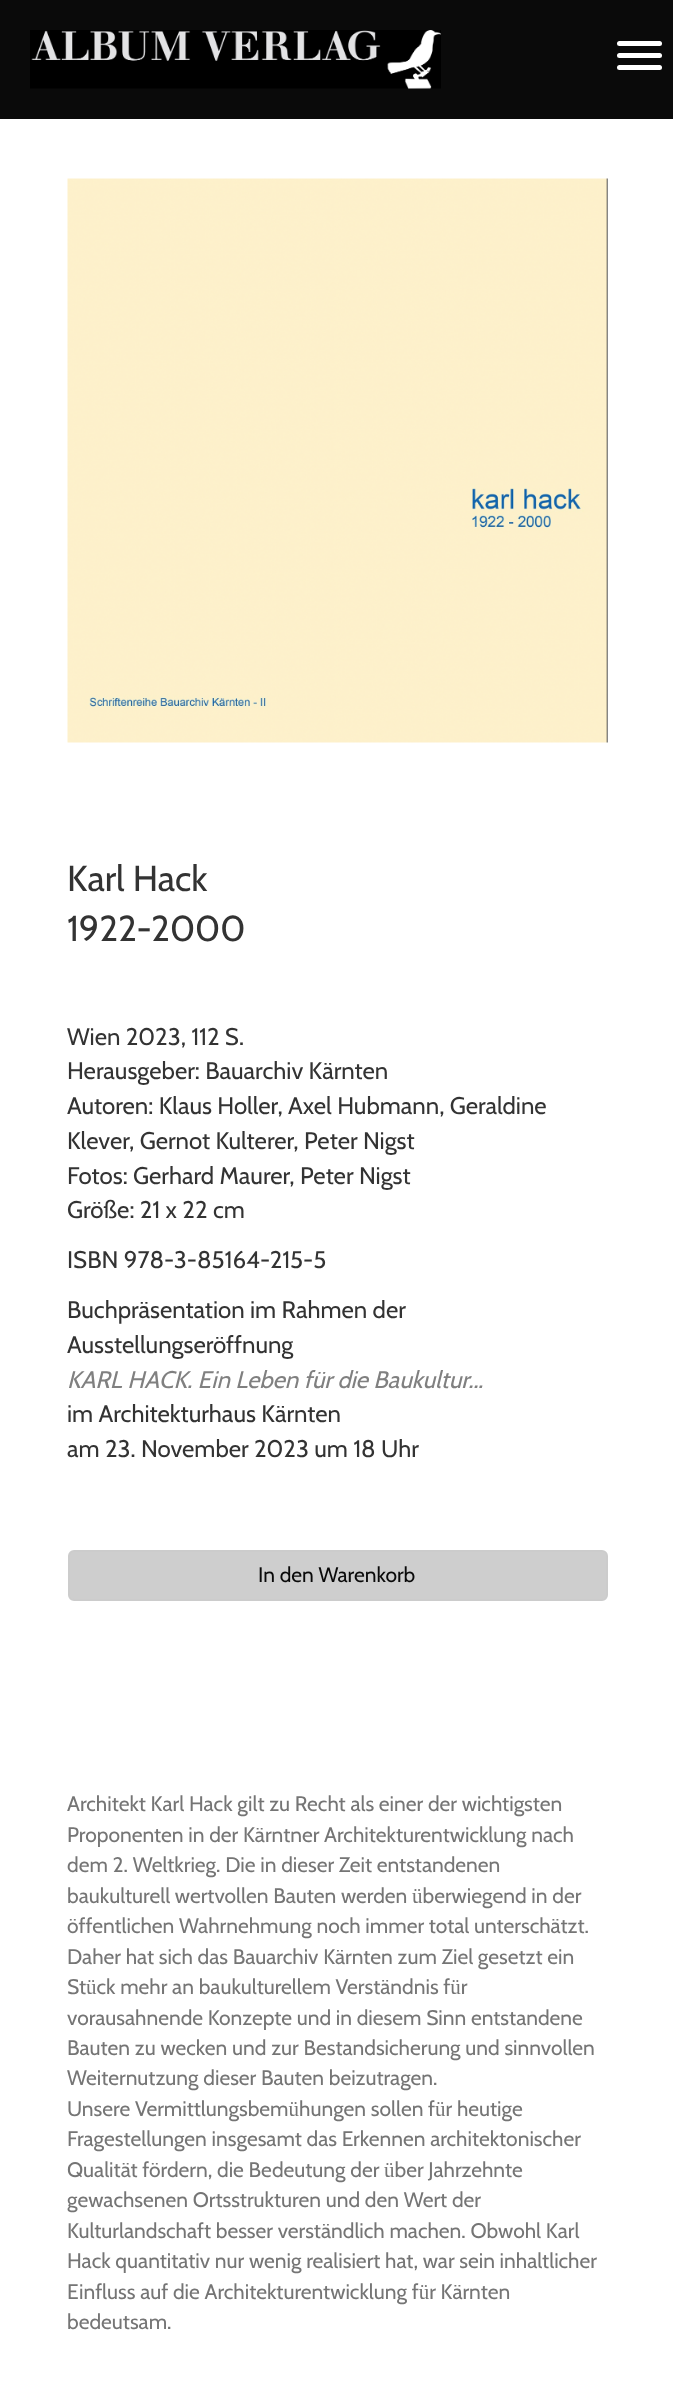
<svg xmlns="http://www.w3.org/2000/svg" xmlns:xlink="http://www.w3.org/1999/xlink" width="673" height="2406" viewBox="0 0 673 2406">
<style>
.cls-1{font:36px Cabin;fill:#333333}
.cls-2{font:24px Cabin;fill:#333333}
.cls-3{font:italic 24px Cabin;fill:#808080}
.cls-4{font:21px Cabin;fill:#0a0a0a}
.cls-5{font:21px Cabin;fill:#757575}
</style>
<rect width="100%" height="100%" fill="#ffffff"/>
<rect fill="#0a0a0a" x="0" y="0" width="673" height="119"/>
<image xlink:href="image0.png" x="30" y="30" width="411" height="59"/>
<rect fill="#ffffff" x="617" y="53" width="45" height="5" rx="2.5"/>
<rect fill="#ffffff" x="617" y="41" width="45" height="5" rx="2.5"/>
<rect fill="#ffffff" x="617" y="65" width="45" height="5" rx="2.5"/>
<image xlink:href="image1.png" x="67" y="178" width="541" height="565"/>
<rect fill="#cecece" stroke="#cccccc" stroke-width="2" x="69" y="1551" width="538" height="49" rx="5"/>
<text class="cls-1"><tspan x="67" y="891">Karl Hack</tspan><tspan x="67" y="941">1922-2000</tspan></text>
<text class="cls-2"><tspan x="67" y="1045">Wien 2023, 112 S.</tspan><tspan x="67" y="1079">Herausgeber: Bauarchiv Kärnten</tspan><tspan x="67" y="1114">Autoren: Klaus Holler, Axel Hubmann, Geraldine</tspan><tspan x="67" y="1149">Klever, Gernot Kulterer, Peter Nigst</tspan><tspan x="67" y="1184">Fotos: Gerhard Maurer, Peter Nigst</tspan><tspan x="67" y="1218">Größe: 21 x 22 cm</tspan></text>
<text class="cls-2" x="67" y="1268">ISBN 978-3-85164-215-5</text>
<text class="cls-2"><tspan x="67" y="1318">Buchpräsentation im Rahmen der</tspan><tspan x="67" y="1353">Ausstellungseröffnung</tspan></text>
<text class="cls-3" x="67" y="1388">KARL HACK. Ein Leben für die Baukultur...</text>
<text class="cls-2"><tspan x="67" y="1422">im Architekturhaus Kärnten</tspan><tspan x="67" y="1457">am 23. November 2023 um 18 Uhr</tspan></text>
<text class="cls-4" x="258" y="1582">In den Warenkorb</text>
<text class="cls-5"><tspan x="67" y="1811">Architekt Karl Hack gilt zu Recht als einer der wichtigsten</tspan><tspan x="67" y="1842">Proponenten in der Kärntner Architekturentwicklung nach</tspan><tspan x="67" y="1872">dem 2. Weltkrieg. Die in dieser Zeit entstandenen</tspan><tspan x="67" y="1903">baukulturell wertvollen Bauten werden überwiegend in der</tspan><tspan x="67" y="1933">öffentlichen Wahrnehmung noch immer total unterschätzt.</tspan><tspan x="67" y="1964">Daher hat sich das Bauarchiv Kärnten zum Ziel gesetzt ein</tspan><tspan x="67" y="1994">Stück mehr an baukulturellem Verständnis für</tspan><tspan x="67" y="2025">vorausahnende Konzepte und in diesem Sinn entstandene</tspan><tspan x="67" y="2055">Bauten zu wecken und zur Bestandsicherung und sinnvollen</tspan><tspan x="67" y="2085">Weiternutzung dieser Bauten beizutragen.</tspan><tspan x="67" y="2116">Unsere Vermittlungsbemühungen sollen für heutige</tspan><tspan x="67" y="2146">Fragestellungen insgesamt das Erkennen architektonischer</tspan><tspan x="67" y="2177">Qualität fördern, die Bedeutung der über Jahrzehnte</tspan><tspan x="67" y="2207">gewachsenen Ortsstrukturen und den Wert der</tspan><tspan x="67" y="2238">Kulturlandschaft besser verständlich machen. Obwohl Karl</tspan><tspan x="67" y="2268">Hack quantitativ nur wenig realisiert hat, war sein inhaltlicher</tspan><tspan x="67" y="2299">Einfluss auf die Architekturentwicklung für Kärnten</tspan><tspan x="67" y="2329">bedeutsam.</tspan></text>
</svg>
